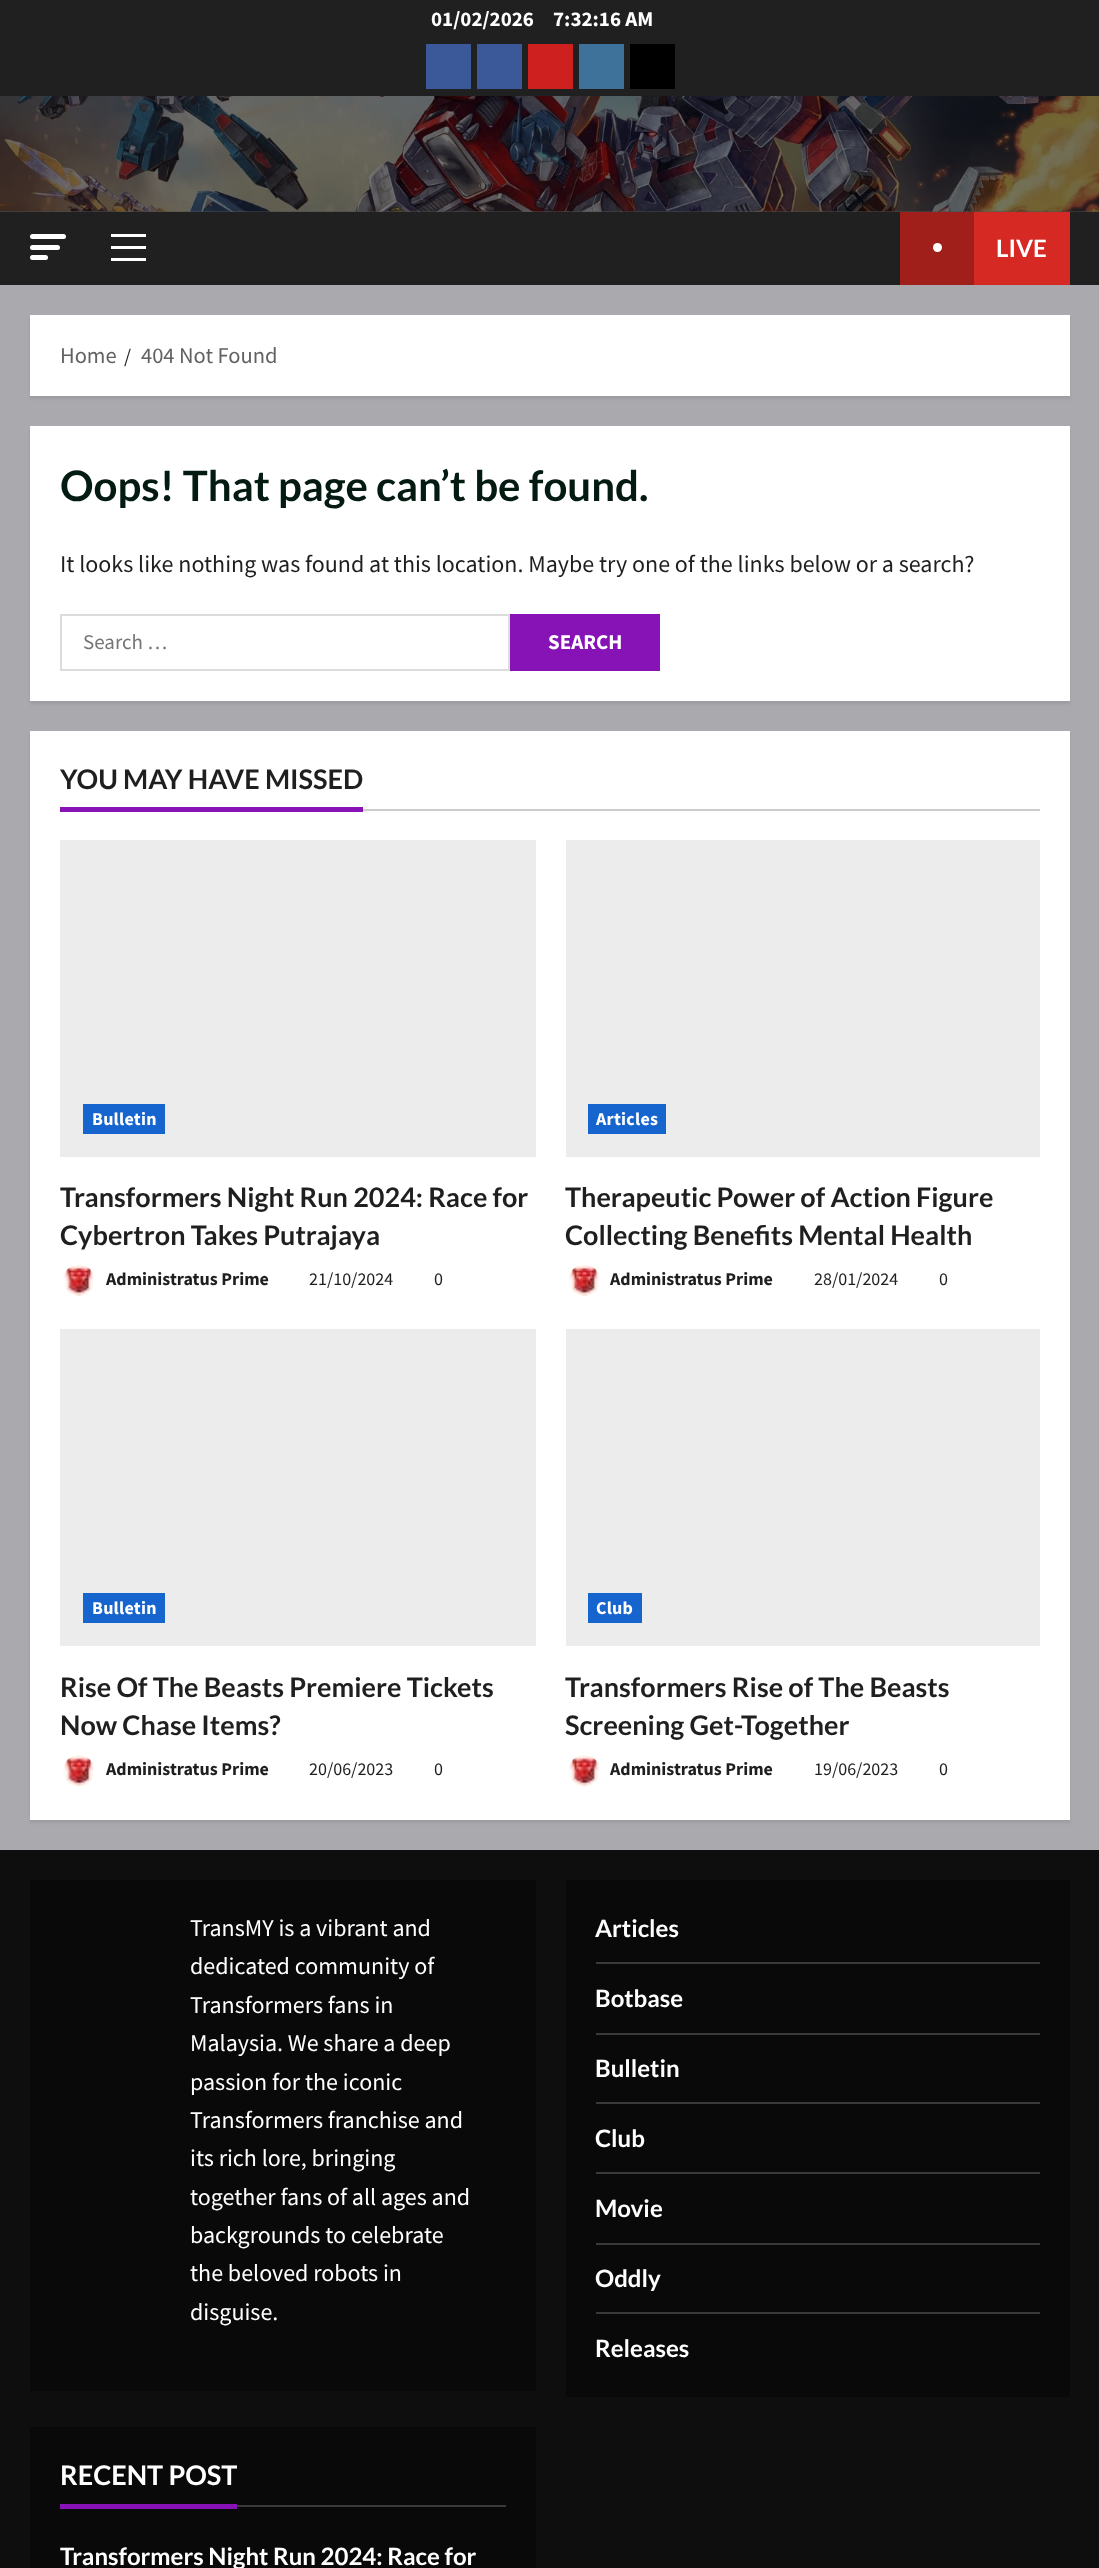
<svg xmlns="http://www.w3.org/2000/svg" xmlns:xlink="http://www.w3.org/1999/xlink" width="1099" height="2568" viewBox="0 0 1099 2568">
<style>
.cls-1{font:bold 21px Source Sans Pro;fill:#ffffff}
.cls-2{font:bold 24px Lato;fill:#ffffff}
.cls-3{font:22.5px Source Sans Pro;fill:#626262}
.cls-4{font:20px Source Sans Pro;fill:#1f1f1f}
.cls-5{font:bold 42px Lato;fill:#031b11}
.cls-6{font:24px Source Sans Pro;fill:#1f1f1f}
.cls-7{font:21px Source Sans Pro;fill:#757575}
.cls-8{font:bold 27px Lato;fill:#1f1f1f}
.cls-9{font:bold 18px Source Sans Pro;letter-spacing:0.25px;fill:#ffffff}
.cls-10{font:bold 18px Source Sans Pro;fill:#1f1f1f}
.cls-11{font:18px Source Sans Pro;fill:#1f1f1f}
.cls-12{font:24px Source Sans Pro;fill:#ffffff}
.cls-13{font:bold 27px Lato;fill:#ffffff}
</style>
<rect width="100%" height="100%" fill="#aaa9ad"/>
<rect fill="#4c4c4e" x="0" y="211" width="1099" height="1"/>
<rect fill="#202020" x="0" y="0" width="1099" height="96"/>
<rect fill="#3b5999" x="426" y="44" width="45" height="45"/>
<rect fill="#3b5999" x="477" y="44" width="45" height="45"/>
<rect fill="#cd201f" x="528" y="44" width="45" height="45"/>
<rect fill="#3f729b" x="579" y="44" width="45" height="45"/>
<rect fill="#000000" x="630" y="44" width="45" height="45"/>
<image xlink:href="image0.png" x="0" y="96" width="1099" height="116"/>
<rect fill="#202020" x="0" y="212" width="1099" height="73"/>
<rect fill="#ffffff" x="30" y="234" width="36" height="5" rx="2.5"/>
<rect fill="#ffffff" x="30" y="245" width="30" height="5" rx="2.5"/>
<rect fill="#ffffff" x="30" y="255" width="18" height="5" rx="2.5"/>
<rect fill="#ffffff" x="111" y="246" width="35" height="3"/>
<rect fill="#ffffff" x="111" y="234" width="35" height="3"/>
<rect fill="#ffffff" x="111" y="258" width="35" height="3"/>
<rect fill="#d72924" x="974" y="212" width="96" height="73"/>
<rect fill="#a11f1b" x="900" y="212" width="74" height="73"/>
<circle fill="#ffffff" cx="937.5" cy="247.5" r="4.5"/>
<rect fill="#000000" fill-opacity="0.08" filter="blur(1.5px)" x="30" y="318" width="1040" height="81"/>
<rect fill="#ffffff" x="30" y="315" width="1040" height="81"/>
<rect fill="#000000" fill-opacity="0.08" filter="blur(1.5px)" x="30" y="429" width="1040" height="275"/>
<rect fill="#ffffff" x="30" y="426" width="1040" height="275"/>
<rect fill="none" stroke="#dcdcdc" stroke-width="2" x="61" y="615" width="448" height="55"/>
<rect fill="#8712b6" x="510" y="614" width="150" height="57"/>
<rect fill="#000000" fill-opacity="0.08" filter="blur(1.5px)" x="30" y="734" width="1040" height="1089"/>
<rect fill="#ffffff" x="30" y="731" width="1040" height="1089"/>
<rect fill="#cccccc" x="363" y="809" width="677" height="2"/>
<rect fill="#8712b6" x="60" y="807" width="303" height="5"/>
<rect fill="#ececec" x="60" y="840" width="476" height="317"/>
<rect fill="#1665cf" x="83" y="1104" width="82" height="30"/>
<image xlink:href="image1.png" x="63" y="1265" width="31" height="31"/>
<rect fill="#ececec" x="566" y="840" width="474" height="317"/>
<rect fill="#1665cf" x="588" y="1104" width="78" height="30"/>
<image xlink:href="image2.png" x="569" y="1264" width="31" height="32"/>
<rect fill="#ececec" x="60" y="1329" width="476" height="317"/>
<rect fill="#1665cf" x="83" y="1593" width="82" height="30"/>
<image xlink:href="image3.png" x="63" y="1755" width="31" height="32"/>
<rect fill="#ececec" x="566" y="1329" width="474" height="317"/>
<rect fill="#1665cf" x="588" y="1593" width="54" height="30"/>
<image xlink:href="image4.png" x="569" y="1755" width="31" height="32"/>
<rect fill="#0e0e0e" x="0" y="1850" width="1099" height="718"/>
<rect fill="#090909" x="30" y="1880" width="506" height="511"/>
<rect fill="#090909" x="566" y="1880" width="504" height="517"/>
<rect fill="#3a3a3a" x="596" y="1962" width="444" height="2"/>
<rect fill="#3a3a3a" x="596" y="2033" width="444" height="2"/>
<rect fill="#3a3a3a" x="596" y="2102" width="444" height="2"/>
<rect fill="#3a3a3a" x="596" y="2172" width="444" height="2"/>
<rect fill="#3a3a3a" x="596" y="2243" width="444" height="2"/>
<rect fill="#3a3a3a" x="596" y="2312" width="444" height="2"/>
<rect fill="#090909" x="30" y="2427" width="506" height="141"/>
<rect fill="#3a3a3a" x="237" y="2505" width="269" height="2"/>
<rect fill="#8712b6" x="60" y="2504" width="177" height="5"/>
<text class="cls-1" x="431" y="26">01/02/2026</text>
<text class="cls-1" x="553" y="26">7:32:16 AM</text>
<text class="cls-2" x="996" y="257">LIVE</text>
<text class="cls-3" x="60" y="363">Home</text>
<text class="cls-4" x="124" y="363">/</text>
<text class="cls-3" x="141" y="363">404 Not Found</text>
<text class="cls-5" x="60" y="501">Oops! That page can’t be found.</text>
<text class="cls-6" x="60" y="572">It looks like nothing was found at this location. Maybe try one of the links below or a search?</text>
<text class="cls-7" x="83" y="649">Search …</text>
<text class="cls-1" x="548" y="649">SEARCH</text>
<text class="cls-8" x="60" y="789">YOU MAY HAVE MISSED</text>
<text class="cls-9" x="92" y="1125">Bulletin</text>
<text class="cls-8"><tspan x="60" y="1207">Transformers Night Run 2024: Race for</tspan><tspan x="60" y="1245">Cybertron Takes Putrajaya</tspan></text>
<text class="cls-10" x="106" y="1285">Administratus Prime</text>
<text class="cls-11" x="309" y="1285">21/10/2024</text>
<text class="cls-11" x="434" y="1285">0</text>
<text class="cls-9" x="596" y="1125">Articles</text>
<text class="cls-8"><tspan x="565" y="1207">Therapeutic Power of Action Figure</tspan><tspan x="565" y="1245">Collecting Benefits Mental Health</tspan></text>
<text class="cls-10" x="610" y="1285">Administratus Prime</text>
<text class="cls-11" x="814" y="1285">28/01/2024</text>
<text class="cls-11" x="939" y="1285">0</text>
<text class="cls-9" x="92" y="1614">Bulletin</text>
<text class="cls-8"><tspan x="60" y="1697">Rise Of The Beasts Premiere Tickets</tspan><tspan x="60" y="1735">Now Chase Items?</tspan></text>
<text class="cls-10" x="106" y="1775">Administratus Prime</text>
<text class="cls-11" x="309" y="1775">20/06/2023</text>
<text class="cls-11" x="434" y="1775">0</text>
<text class="cls-9" x="596" y="1614">Club</text>
<text class="cls-8"><tspan x="565" y="1697">Transformers Rise of The Beasts</tspan><tspan x="565" y="1735">Screening Get-Together</tspan></text>
<text class="cls-10" x="610" y="1775">Administratus Prime</text>
<text class="cls-11" x="814" y="1775">19/06/2023</text>
<text class="cls-11" x="939" y="1775">0</text>
<text class="cls-12"><tspan x="190" y="1936">TransMY is a vibrant and</tspan><tspan x="190" y="1974">dedicated community of</tspan><tspan x="190" y="2013">Transformers fans in</tspan><tspan x="190" y="2051">Malaysia. We share a deep</tspan><tspan x="190" y="2090">passion for the iconic</tspan><tspan x="190" y="2128">Transformers franchise and</tspan><tspan x="190" y="2166">its rich lore, bringing</tspan><tspan x="190" y="2205">together fans of all ages and</tspan><tspan x="190" y="2243">backgrounds to celebrate</tspan><tspan x="190" y="2281">the beloved robots in</tspan><tspan x="190" y="2320">disguise.</tspan></text>
<text class="cls-2" x="595" y="1937">Articles</text>
<text class="cls-2" x="595" y="2007">Botbase</text>
<text class="cls-2" x="595" y="2077">Bulletin</text>
<text class="cls-2" x="595" y="2147">Club</text>
<text class="cls-2" x="595" y="2217">Movie</text>
<text class="cls-2" x="595" y="2287">Oddly</text>
<text class="cls-2" x="595" y="2357">Releases</text>
<text class="cls-13" x="60" y="2485">RECENT POST</text>
<text class="cls-2" x="60" y="2565">Transformers Night Run 2024: Race for</text>
</svg>
